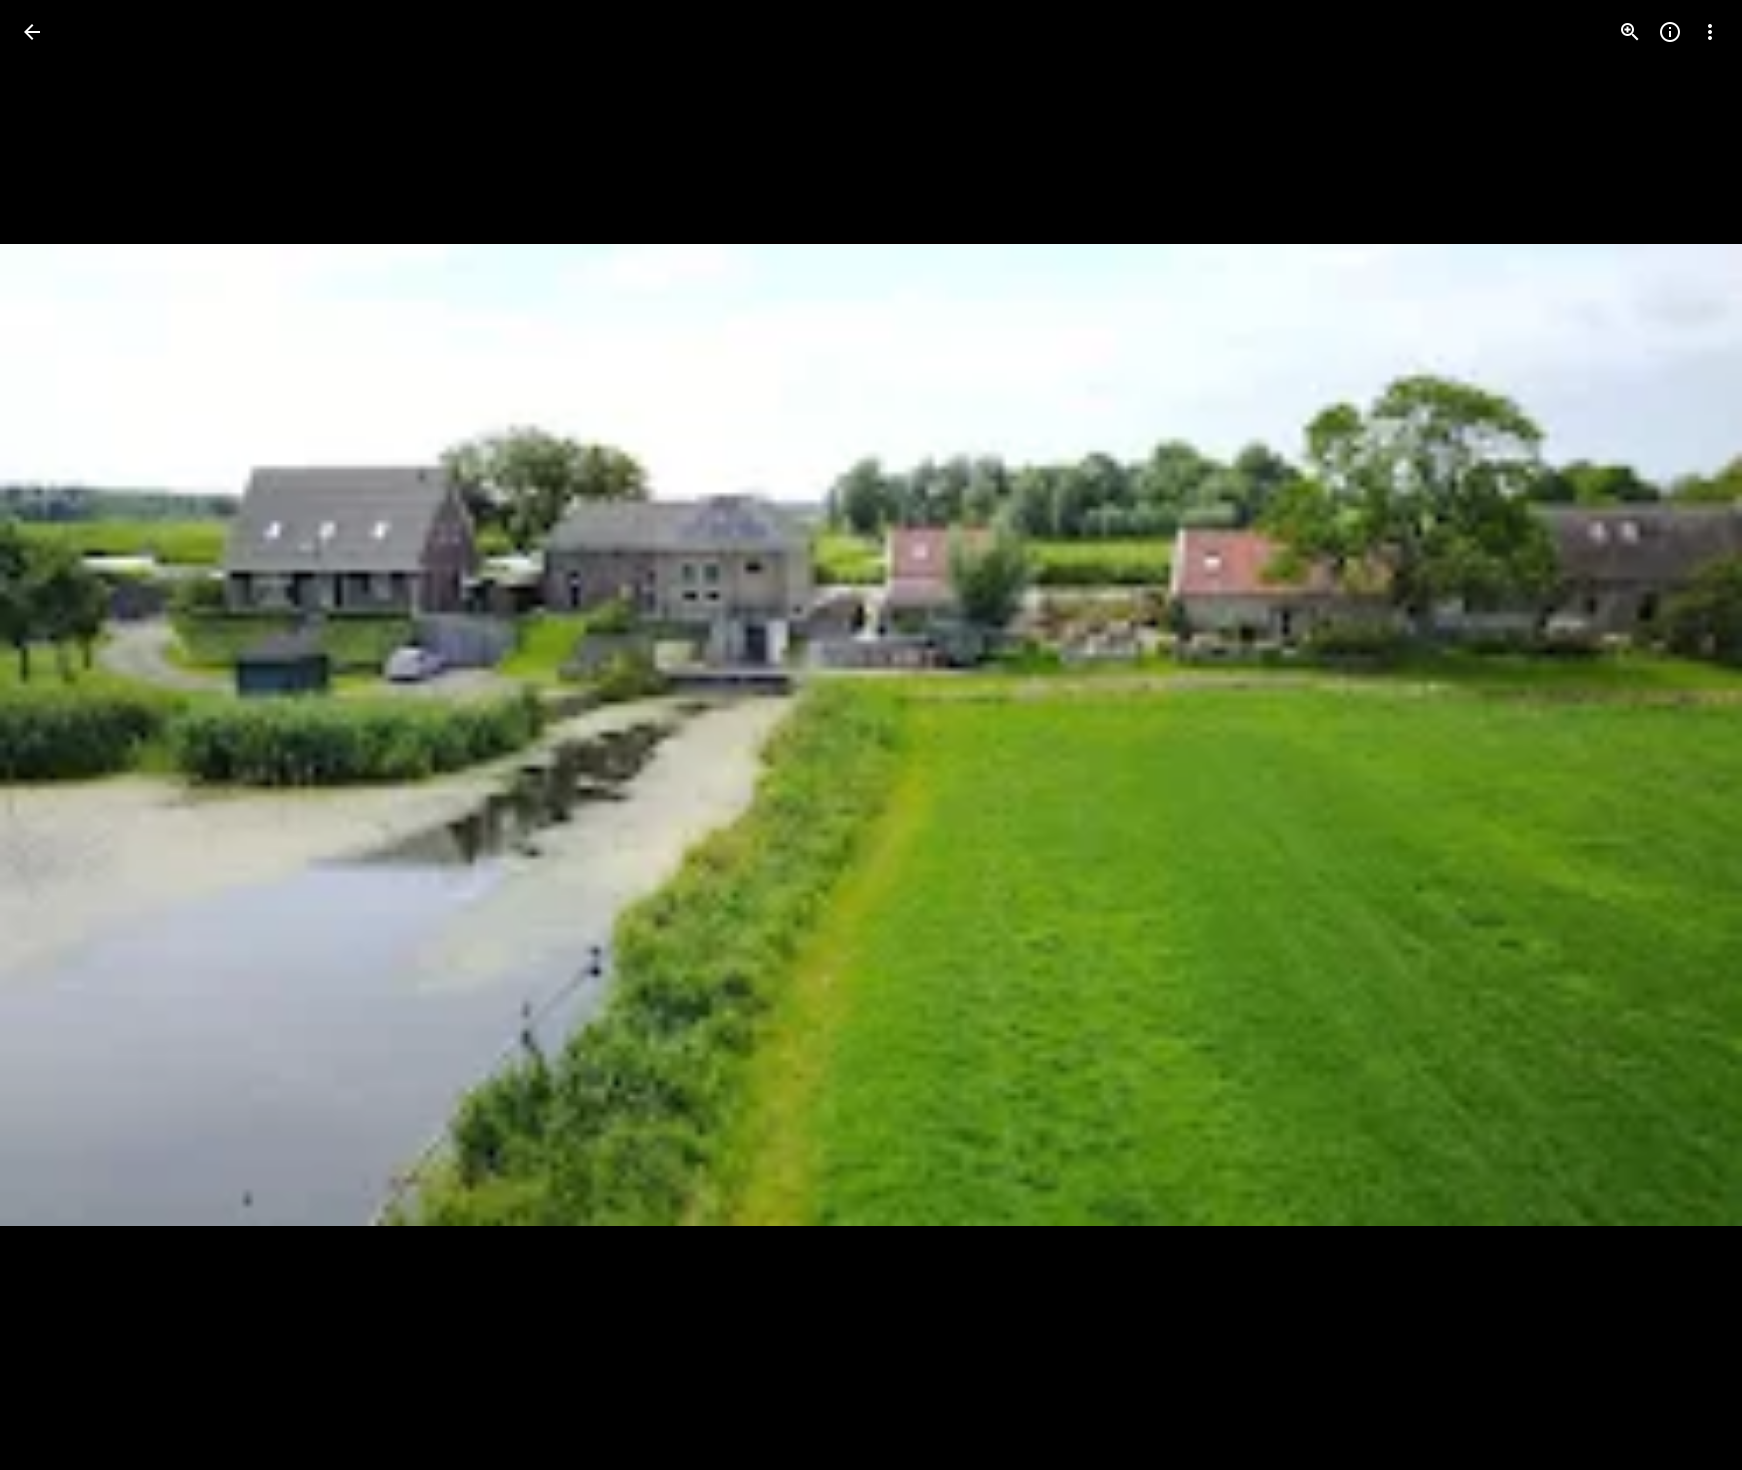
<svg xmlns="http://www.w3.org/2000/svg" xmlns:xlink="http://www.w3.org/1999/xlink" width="1742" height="1470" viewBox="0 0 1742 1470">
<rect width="100%" height="100%" fill="#000000"/>
<image xlink:href="image0.png" x="24" y="24" width="16" height="16"/>
<image xlink:href="image1.png" x="1621" y="23" width="18" height="18"/>
<image xlink:href="image2.png" x="1660" y="22" width="20" height="20"/>
<image xlink:href="image3.png" x="1708" y="24" width="4" height="16"/>
<image xlink:href="image4.png" x="0" y="244" width="1742" height="982"/>
</svg>
